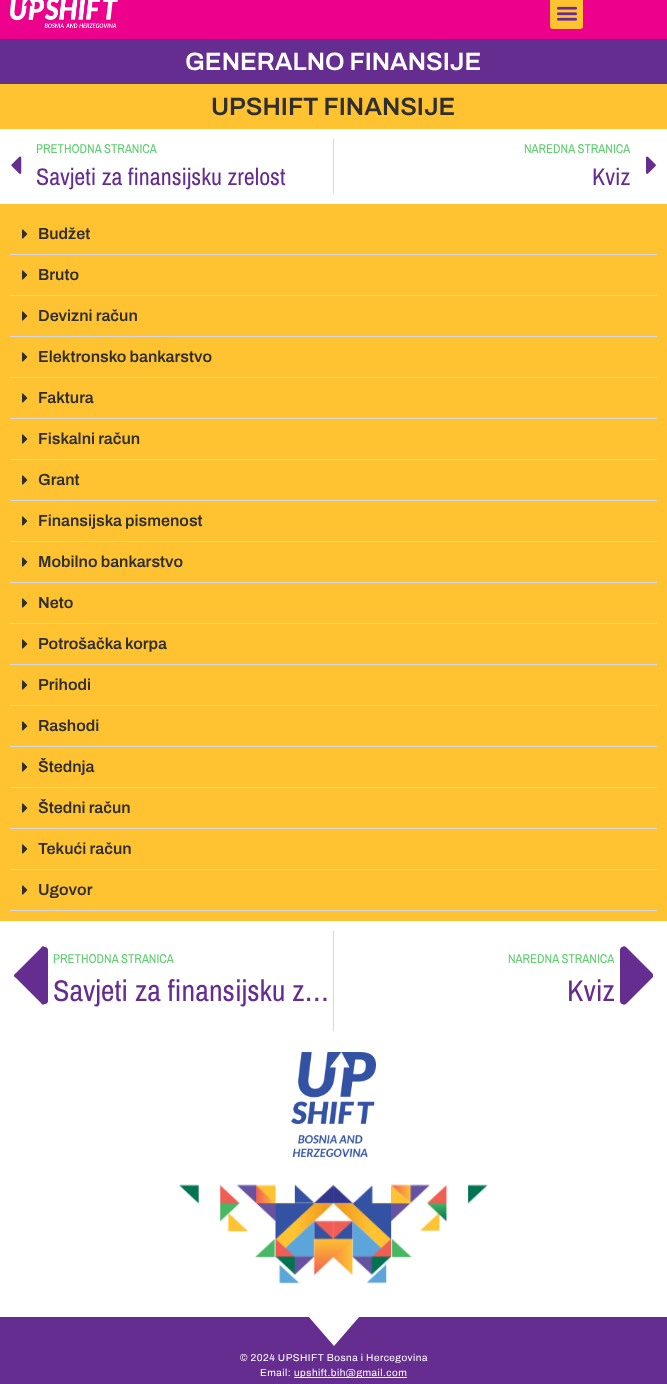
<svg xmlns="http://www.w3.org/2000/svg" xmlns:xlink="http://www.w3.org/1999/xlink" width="667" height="1384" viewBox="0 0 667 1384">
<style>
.cls-1{font:600 25px Archivo;fill:#ffffff}
.cls-2{font:600 25px Archivo;fill:#2f2f2f}
.cls-3{font:12.75px Archivo Narrow;fill:#61ce70}
.cls-4{font:24px Archivo Narrow;fill:#652d90}
.cls-5{font:600 16px Archivo;fill:#2f2f2f}
.cls-6{font:30px Archivo Narrow;fill:#652d90}
.cls-7{font:10px Archivo;letter-spacing:0.5px;fill:#ffffff}
</style>
<rect width="100%" height="100%" fill="#ffffff"/>
<rect fill="#ec008c" x="0" y="0" width="667" height="39"/>
<image xlink:href="image0.png" x="10" y="0" width="108" height="28"/>
<rect fill="#ffc332" x="550" y="-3" width="33" height="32" rx="3"/>
<image xlink:href="image1.png" x="556" y="6" width="22" height="15"/>
<rect fill="#652d90" x="0" y="39" width="667" height="45"/>
<rect fill="#ffc332" x="0" y="84" width="667" height="45"/>
<image xlink:href="image2.png" x="11" y="156" width="11" height="18"/>
<rect fill="#d5d8dc" x="333" y="139" width="1" height="55"/>
<image xlink:href="image3.png" x="646" y="156" width="10" height="18"/>
<rect fill="#ffc332" x="0" y="204" width="667" height="717"/>
<rect fill="#d5d8dc" x="10" y="254" width="647" height="1"/>
<image xlink:href="image4.png" x="22" y="229" width="6" height="10"/>
<rect fill="#d5d8dc" x="10" y="295" width="647" height="1"/>
<image xlink:href="image4.png" x="22" y="270" width="6" height="10"/>
<rect fill="#d5d8dc" x="10" y="336" width="647" height="1"/>
<image xlink:href="image4.png" x="22" y="311" width="6" height="10"/>
<rect fill="#d5d8dc" x="10" y="377" width="647" height="1"/>
<image xlink:href="image4.png" x="22" y="352" width="6" height="10"/>
<rect fill="#d5d8dc" x="10" y="418" width="647" height="1"/>
<image xlink:href="image4.png" x="22" y="393" width="6" height="10"/>
<rect fill="#d5d8dc" x="10" y="459" width="647" height="1"/>
<image xlink:href="image4.png" x="22" y="434" width="6" height="10"/>
<rect fill="#d5d8dc" x="10" y="500" width="647" height="1"/>
<image xlink:href="image4.png" x="22" y="475" width="6" height="10"/>
<rect fill="#d5d8dc" x="10" y="541" width="647" height="1"/>
<image xlink:href="image4.png" x="22" y="516" width="6" height="10"/>
<rect fill="#d5d8dc" x="10" y="582" width="647" height="1"/>
<image xlink:href="image4.png" x="22" y="557" width="6" height="10"/>
<rect fill="#d5d8dc" x="10" y="623" width="647" height="1"/>
<image xlink:href="image4.png" x="22" y="598" width="6" height="10"/>
<rect fill="#d5d8dc" x="10" y="664" width="647" height="1"/>
<image xlink:href="image4.png" x="22" y="639" width="6" height="10"/>
<rect fill="#d5d8dc" x="10" y="705" width="647" height="1"/>
<image xlink:href="image4.png" x="22" y="680" width="6" height="10"/>
<rect fill="#d5d8dc" x="10" y="746" width="647" height="1"/>
<image xlink:href="image4.png" x="22" y="721" width="6" height="10"/>
<rect fill="#d5d8dc" x="10" y="787" width="647" height="1"/>
<image xlink:href="image4.png" x="22" y="762" width="6" height="10"/>
<rect fill="#d5d8dc" x="10" y="828" width="647" height="1"/>
<image xlink:href="image4.png" x="22" y="803" width="6" height="10"/>
<rect fill="#d5d8dc" x="10" y="869" width="647" height="1"/>
<image xlink:href="image4.png" x="22" y="844" width="6" height="10"/>
<rect fill="#d5d8dc" x="10" y="910" width="647" height="1"/>
<image xlink:href="image4.png" x="22" y="885" width="6" height="10"/>
<path fill="#652d90" d="M48 950V1001C48 1002 47 1004 45 1004C43 1005 42 1005 41 1003L16 978C15 977 14 977 14 976C14 974 15 974 16 973L41 948C42 946 43 946 45 947C47 947 48 949 48 950Z"/>
<rect fill="#d5d8dc" x="333" y="931" width="1" height="100"/>
<path fill="#652d90" d="M620 1001V950C620 949 621 947 622 947C624 946 625 946 627 948L652 973C653 974 653 974 653 976C653 977 653 977 652 978L627 1003C625 1005 624 1005 622 1004C621 1004 620 1002 620 1001Z"/>
<image xlink:href="image5.png" x="291" y="1052" width="85" height="105"/>
<image xlink:href="image6.png" x="179" y="1184" width="309" height="100"/>
<rect fill="#652d90" x="0" y="1317" width="667" height="67"/>
<path fill="#ffffff" d="M334 1346L308 1316H360Z"/>
<rect fill="#ffffff" x="294" y="1377" width="113" height="1"/>
<text class="cls-1" x="185" y="70">GENERALNO FINANSIJE</text>
<text class="cls-2" x="211" y="115">UPSHIFT FINANSIJE</text>
<text class="cls-3" x="36" y="153">PRETHODNA STRANICA</text>
<text class="cls-4" x="36" y="185">Savjeti za finansijsku zrelost</text>
<text class="cls-3" x="524" y="153">NAREDNA STRANICA</text>
<text class="cls-4" x="592" y="185">Kviz</text>
<text class="cls-5" x="38" y="239">Budžet</text>
<text class="cls-5" x="38" y="280">Bruto</text>
<text class="cls-5" x="38" y="321">Devizni račun</text>
<text class="cls-5" x="38" y="362">Elektronsko bankarstvo</text>
<text class="cls-5" x="38" y="403">Faktura</text>
<text class="cls-5" x="38" y="444">Fiskalni račun</text>
<text class="cls-5" x="38" y="485">Grant</text>
<text class="cls-5" x="38" y="526">Finansijska pismenost</text>
<text class="cls-5" x="38" y="567">Mobilno bankarstvo</text>
<text class="cls-5" x="38" y="608">Neto</text>
<text class="cls-5" x="38" y="649">Potrošačka korpa</text>
<text class="cls-5" x="38" y="690">Prihodi</text>
<text class="cls-5" x="38" y="731">Rashodi</text>
<text class="cls-5" x="38" y="772">Štednja</text>
<text class="cls-5" x="38" y="813">Štedni račun</text>
<text class="cls-5" x="38" y="854">Tekući račun</text>
<text class="cls-5" x="38" y="895">Ugovor</text>
<text class="cls-3" x="53" y="963">PRETHODNA STRANICA</text>
<text class="cls-6" x="53" y="1001">Savjeti za finansijsku z…</text>
<text class="cls-3" x="508" y="963">NAREDNA STRANICA</text>
<text class="cls-6" x="567" y="1001">Kviz</text>
<text class="cls-7" x="240" y="1361">© 2024 UPSHIFT Bosna i Hercegovina</text>
<text class="cls-7" x="260" y="1376">Email:</text>
<text class="cls-7" x="294" y="1376">upshift.bih@gmail.com</text>
</svg>
